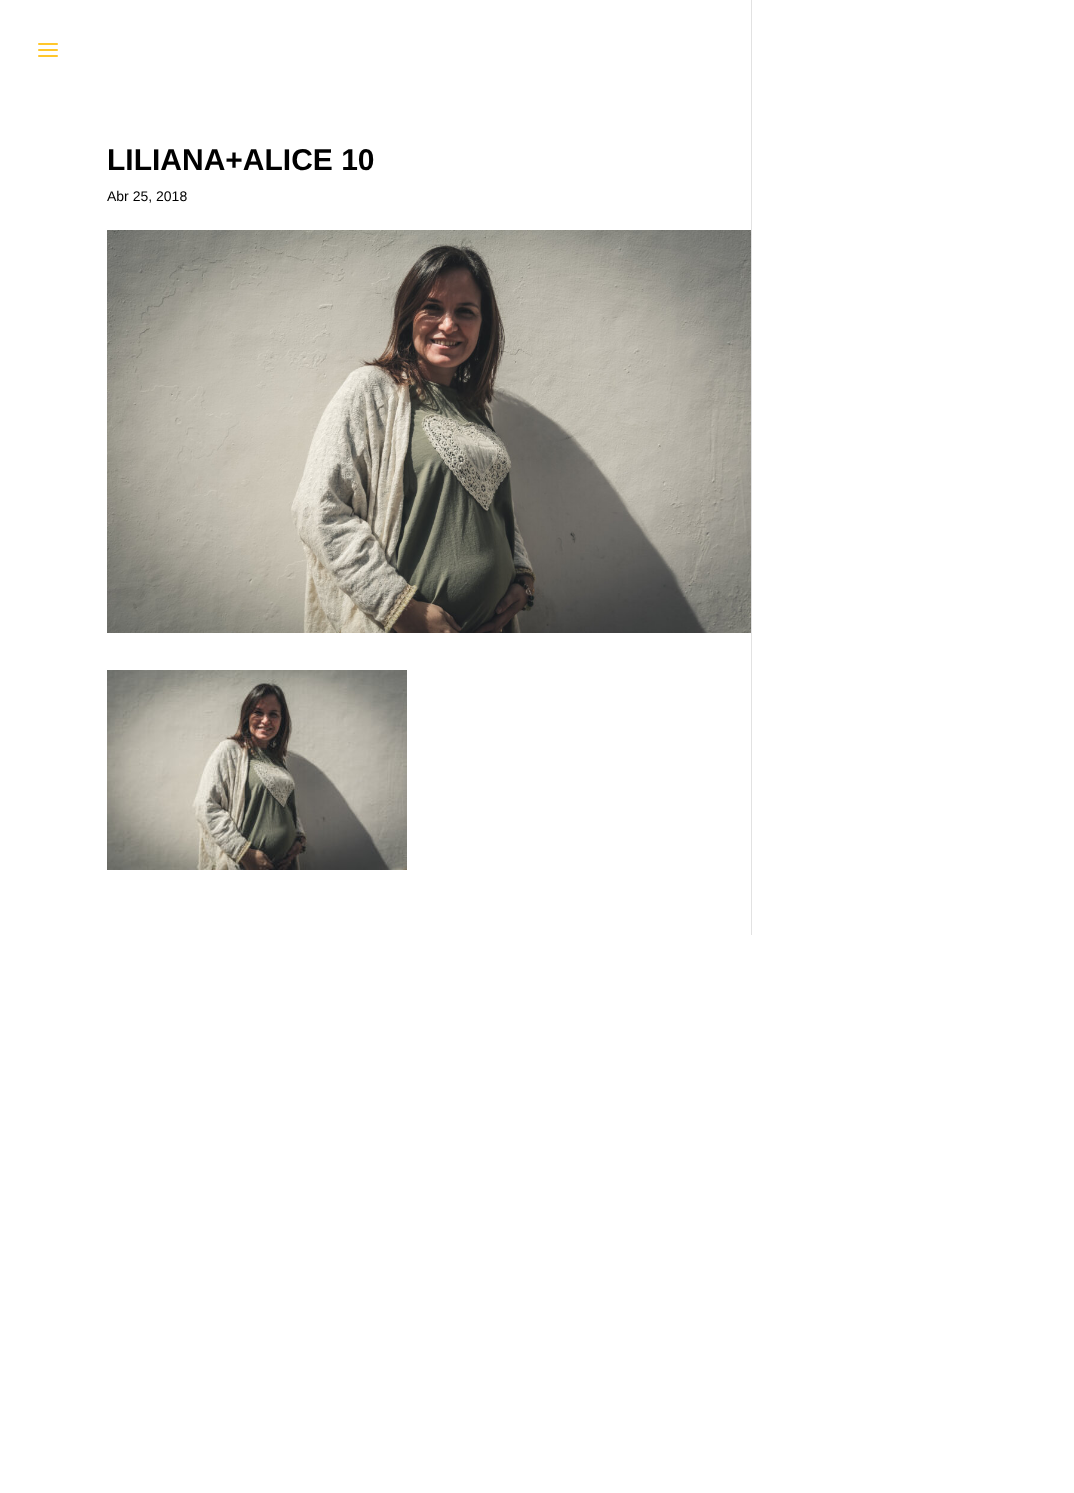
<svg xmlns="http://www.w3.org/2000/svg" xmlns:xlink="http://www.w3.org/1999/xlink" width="1074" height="1493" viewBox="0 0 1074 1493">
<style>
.cls-1{font:bold 30px Liberation Sans;fill:#000000}
.cls-2{font:14px Liberation Sans;fill:#000000}
</style>
<rect width="100%" height="100%" fill="#ffffff"/>
<image xlink:href="image0.png" x="38" y="43" width="20" height="14"/>
<image xlink:href="image1.png" x="107" y="230" width="644" height="403"/>
<image xlink:href="image2.png" x="107" y="670" width="300" height="200"/>
<rect fill="#e2e2e2" x="751" y="0" width="1" height="935"/>
<text class="cls-1" x="107" y="170">LILIANA+ALICE 10</text>
<text class="cls-2" x="107" y="201">Abr 25, 2018</text>
</svg>
